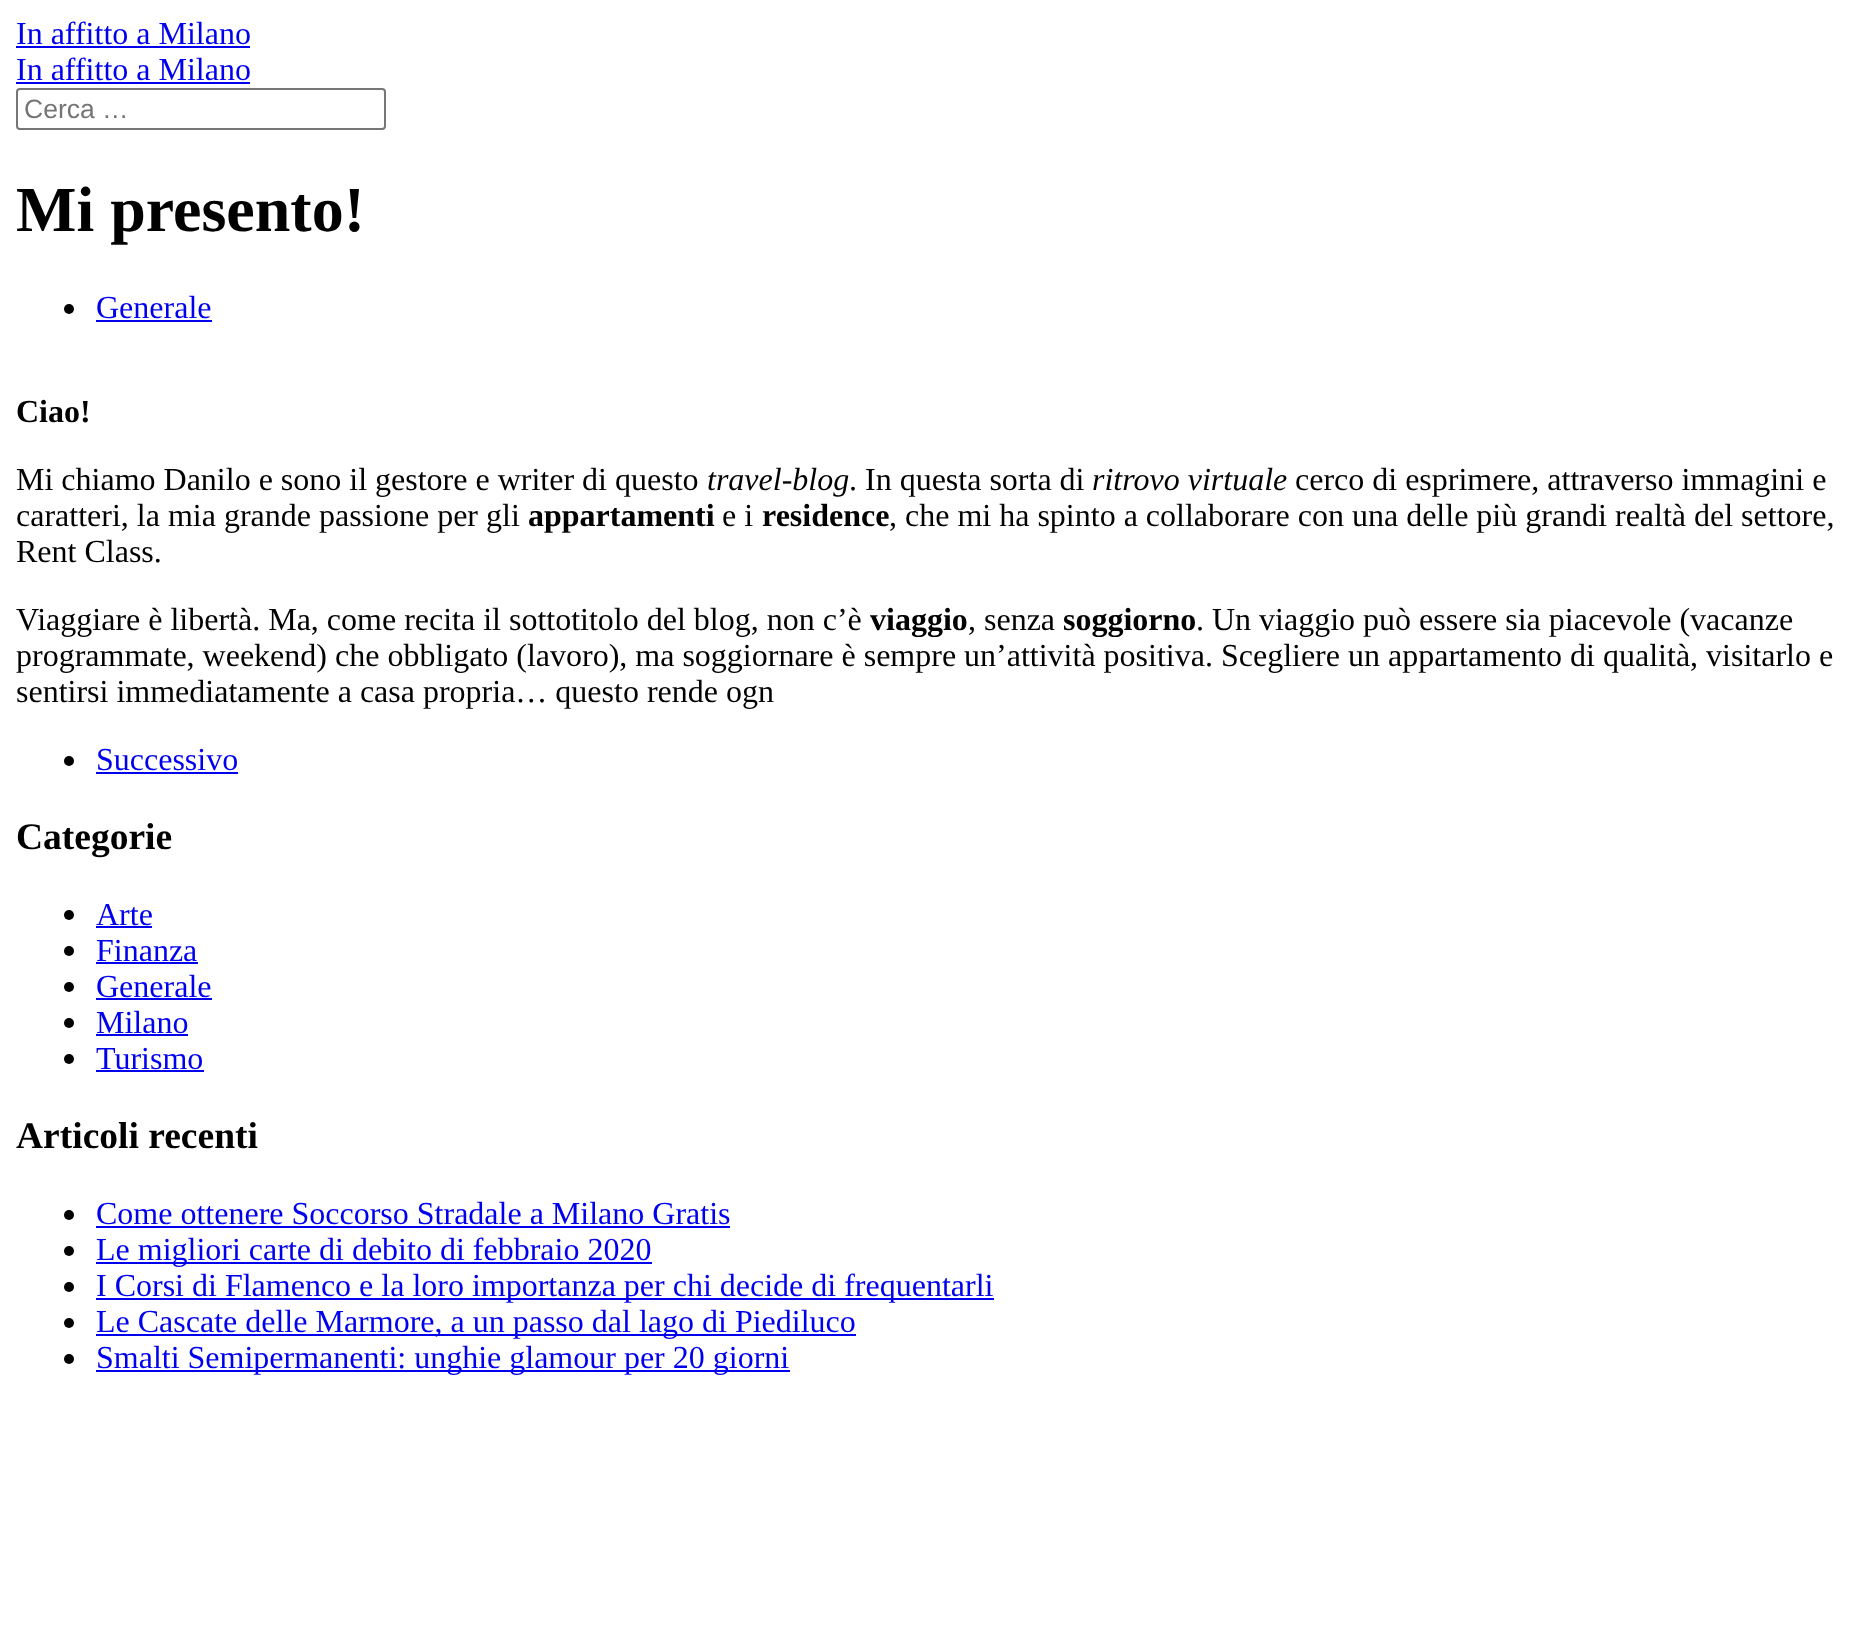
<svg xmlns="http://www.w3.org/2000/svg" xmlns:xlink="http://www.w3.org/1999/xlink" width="1852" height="1648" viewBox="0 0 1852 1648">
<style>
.cls-1{font:32px Liberation Serif;fill:#0000ee}
.cls-2{font:26.5px Liberation Sans;fill:#757575}
.cls-3{font:bold 64px Liberation Serif;fill:#000000}
.cls-4{font:bold 32px Liberation Serif;fill:#000000}
.cls-5{font:32px Liberation Serif;fill:#000000}
.cls-6{font:italic 32px Liberation Serif;fill:#000000}
.cls-7{font:bold 37.5px Liberation Serif;fill:#000000}
</style>
<rect width="100%" height="100%" fill="#ffffff"/>
<rect fill="#0000ee" x="16" y="46" width="234" height="2"/>
<rect fill="#0000ee" x="16" y="82" width="234" height="2"/>
<rect fill="none" stroke="#767676" stroke-width="2" x="17" y="89" width="368" height="40" rx="3"/>
<circle fill="#000000" cx="69" cy="309" r="5"/>
<rect fill="#0000ee" x="96" y="320" width="116" height="2"/>
<circle fill="#000000" cx="69" cy="761" r="5"/>
<rect fill="#0000ee" x="96" y="772" width="142" height="2"/>
<circle fill="#000000" cx="69" cy="915" r="5"/>
<rect fill="#0000ee" x="96" y="926" width="56" height="2"/>
<circle fill="#000000" cx="69" cy="951" r="5"/>
<rect fill="#0000ee" x="96" y="962" width="102" height="2"/>
<circle fill="#000000" cx="69" cy="987" r="5"/>
<rect fill="#0000ee" x="96" y="998" width="116" height="2"/>
<circle fill="#000000" cx="69" cy="1023" r="5"/>
<rect fill="#0000ee" x="96" y="1034" width="92" height="2"/>
<circle fill="#000000" cx="69" cy="1059" r="5"/>
<rect fill="#0000ee" x="96" y="1070" width="108" height="2"/>
<circle fill="#000000" cx="69" cy="1215" r="5"/>
<rect fill="#0000ee" x="96" y="1226" width="634" height="2"/>
<circle fill="#000000" cx="69" cy="1251" r="5"/>
<rect fill="#0000ee" x="96" y="1262" width="556" height="2"/>
<circle fill="#000000" cx="69" cy="1287" r="5"/>
<rect fill="#0000ee" x="96" y="1298" width="898" height="2"/>
<circle fill="#000000" cx="69" cy="1323" r="5"/>
<rect fill="#0000ee" x="96" y="1334" width="760" height="2"/>
<circle fill="#000000" cx="69" cy="1359" r="5"/>
<rect fill="#0000ee" x="96" y="1370" width="694" height="2"/>
<text class="cls-1"><tspan x="16" y="44">In affitto a Milano</tspan><tspan x="16" y="80">In affitto a Milano</tspan></text>
<text class="cls-2" x="24" y="118">Cerca …</text>
<text class="cls-3" x="16" y="231">Mi presento!</text>
<text class="cls-1" x="96" y="318">Generale</text>
<text class="cls-4" x="16" y="422">Ciao!</text>
<text class="cls-5" x="16" y="490">Mi chiamo Danilo e sono il gestore e writer di questo</text>
<text class="cls-6" x="707" y="490">travel-blog</text>
<text class="cls-5" x="849" y="490">. In questa sorta di</text>
<text class="cls-6" x="1092" y="490">ritrovo virtuale</text>
<text class="cls-5" x="1295" y="490">cerco di esprimere, attraverso immagini e</text>
<text class="cls-5" x="16" y="526">caratteri, la mia grande passione per gli</text>
<text class="cls-4" x="528" y="526">appartamenti</text>
<text class="cls-5" x="722" y="526">e i</text>
<text class="cls-4" x="762" y="526">residence</text>
<text class="cls-5" x="889" y="526">, che mi ha spinto a collaborare con una delle più grandi realtà del settore,</text>
<text class="cls-5" x="16" y="562">Rent Class.</text>
<text class="cls-5" x="16" y="630">Viaggiare è libertà. Ma, come recita il sottotitolo del blog, non c’è</text>
<text class="cls-4" x="870" y="630">viaggio</text>
<text class="cls-5" x="968" y="630">, senza</text>
<text class="cls-4" x="1063" y="630">soggiorno</text>
<text class="cls-5" x="1196" y="630">. Un viaggio può essere sia piacevole (vacanze</text>
<text class="cls-5"><tspan x="16" y="666">programmate, weekend) che obbligato (lavoro), ma soggiornare è sempre un’attività positiva. Scegliere un appartamento di qualità, visitarlo e</tspan><tspan x="16" y="702">sentirsi immediatamente a casa propria… questo rende ogn</tspan></text>
<text class="cls-1" x="96" y="770">Successivo</text>
<text class="cls-7" x="16" y="849">Categorie</text>
<text class="cls-1"><tspan x="96" y="925">Arte</tspan><tspan x="96" y="961">Finanza</tspan><tspan x="96" y="997">Generale</tspan><tspan x="96" y="1033">Milano</tspan><tspan x="96" y="1069">Turismo</tspan></text>
<text class="cls-7" x="16" y="1148">Articoli recenti</text>
<text class="cls-1"><tspan x="96" y="1224">Come ottenere Soccorso Stradale a Milano Gratis</tspan><tspan x="96" y="1260">Le migliori carte di debito di febbraio 2020</tspan><tspan x="96" y="1296">I Corsi di Flamenco e la loro importanza per chi decide di frequentarli</tspan><tspan x="96" y="1332">Le Cascate delle Marmore, a un passo dal lago di Piediluco</tspan><tspan x="96" y="1368">Smalti Semipermanenti: unghie glamour per 20 giorni</tspan></text>
</svg>
